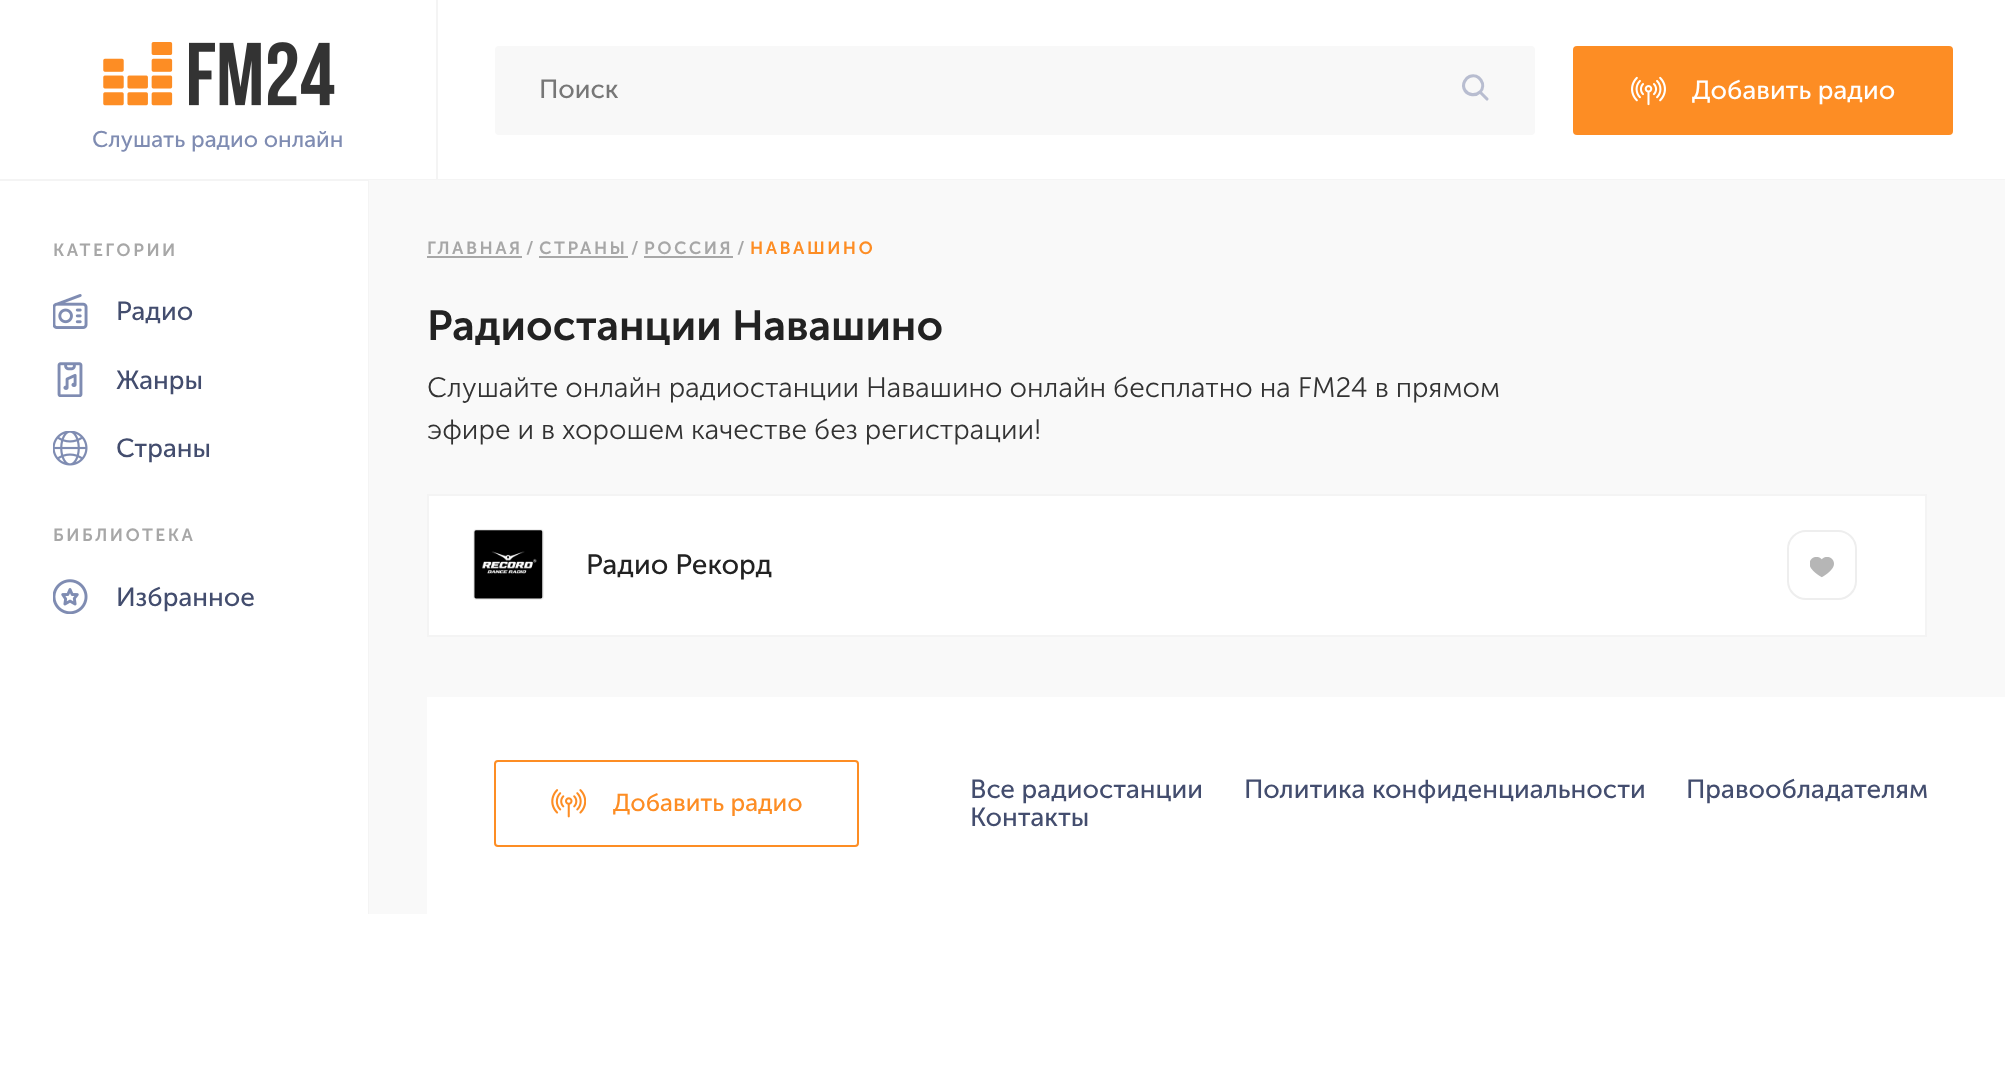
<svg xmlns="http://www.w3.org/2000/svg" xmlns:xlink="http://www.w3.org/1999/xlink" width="2005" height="1090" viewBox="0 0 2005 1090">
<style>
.cls-1{font:26.25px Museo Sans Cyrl;fill:#777777}
.cls-2{font:26.25px Museo Sans Cyrl;fill:#ffffff}
.cls-3{font:22.75px Museo Sans Cyrl;fill:#7f8cb2}
.cls-4{font:600 17.5px Museo Sans Cyrl;letter-spacing:2.5px;fill:#a7a7a7}
.cls-5{font:26.25px Museo Sans Cyrl;fill:#434d6e}
.cls-6{font:600 17.5px Museo Sans Cyrl;letter-spacing:2.5px;fill:#fd8d24}
.cls-7{font:600 42px Museo Sans Cyrl;fill:#222222}
.cls-8{font:300 28px Museo Sans Cyrl;fill:#333333}
.cls-9{font:28px Museo Sans Cyrl;fill:#222222}
.cls-10{font:24.5px Museo Sans Cyrl;fill:#fd8d24}
</style>
<rect width="100%" height="100%" fill="#ffffff"/>
<rect fill="#f4f4f4" x="0" y="179" width="2005" height="2"/>
<rect fill="#f8f8f8" x="495" y="46" width="1040" height="89" rx="4"/>
<path fill="none" stroke="#b8bdd0" stroke-width="3.1" stroke-linecap="round" stroke-linejoin="round" d="M1487 99L1480 92M1480 92C1487 85 1479 72.5 1469.5 76.5C1467 77.5 1465.5 79.5 1464.5 81.5C1463 84.5 1463.5 88 1465 90.5C1468.5 95.5 1475.5 96 1480 92Z"/>
<rect fill="#fd8d24" x="1573" y="46" width="380" height="89" rx="4"/>
<image xlink:href="image0.png" x="1631" y="76" width="35" height="30"/>
<rect fill="#f4f4f4" x="436" y="0" width="2" height="179"/>
<image xlink:href="image1.png" x="103" y="42" width="232" height="64"/>
<rect fill="#f4f4f4" x="368" y="180" width="1" height="734"/>
<image xlink:href="image2.png" x="53" y="294" width="35" height="35"/>
<image xlink:href="image3.png" x="57" y="362" width="26" height="35"/>
<image xlink:href="image4.png" x="53" y="431" width="35" height="35"/>
<image xlink:href="image5.png" x="53" y="579" width="35" height="35"/>
<rect fill="#f9f9f9" x="369" y="180" width="1636" height="734"/>
<rect fill="#a7a7a7" x="427" y="256" width="95" height="2"/>
<rect fill="#a7a7a7" x="539" y="256" width="89" height="2"/>
<rect fill="#a7a7a7" x="644" y="256" width="89" height="2"/>
<rect fill="#ffffff" stroke="#f4f4f4" stroke-width="2" x="428" y="495" width="1498" height="141"/>
<rect fill="none" stroke="#eeeeee" stroke-width="2" x="474" y="530" width="69" height="69" rx="3"/>
<image xlink:href="image6.png" x="474" y="530" width="69" height="69"/>
<rect fill="none" stroke="#eeeeee" stroke-width="2" x="1788" y="531" width="68" height="68" rx="18"/>
<image xlink:href="image7.png" x="1810" y="557" width="24" height="21"/>
<rect fill="#ffffff" x="427" y="697" width="1578" height="217"/>
<rect fill="none" stroke="#fd8d24" stroke-width="2" x="495" y="761" width="363" height="85" rx="3"/>
<image xlink:href="image8.png" x="551" y="789" width="35" height="29"/>
<text class="cls-1" x="539" y="98">Поиск</text>
<text class="cls-2" x="1692" y="99">Добавить радио</text>
<text class="cls-3" x="92" y="147">Слушать радио онлайн</text>
<text class="cls-4" x="53" y="256">КАТЕГОРИИ</text>
<text class="cls-5" x="116" y="320">Радио</text>
<text class="cls-5" x="116" y="389">Жанры</text>
<text class="cls-5" x="116" y="457">Страны</text>
<text class="cls-4" x="53" y="541">БИБЛИОТЕКА</text>
<text class="cls-5" x="116" y="606">Избранное</text>
<text class="cls-4" x="427" y="254">ГЛАВНАЯ</text>
<text class="cls-4" x="526" y="254">/</text>
<text class="cls-4" x="539" y="254">СТРАНЫ</text>
<text class="cls-4" x="631" y="254">/</text>
<text class="cls-4" x="644" y="254">РОССИЯ</text>
<text class="cls-4" x="737" y="254">/</text>
<text class="cls-6" x="750" y="254">НАВАШИНО</text>
<text class="cls-7" x="427" y="340">Радиостанции Навашино</text>
<text class="cls-8"><tspan x="427" y="397">Cлушайте онлайн радиостанции Навашино онлайн бесплатно на FM24 в прямом</tspan><tspan x="427" y="439">эфире и в хорошем качестве без регистрации!</tspan></text>
<text class="cls-9" x="586" y="574">Радио Рекорд</text>
<text class="cls-10" x="613" y="811">Добавить радио</text>
<text class="cls-5" x="970" y="798">Все радиостанции</text>
<text class="cls-5" x="1244" y="798">Политика конфиденциальности</text>
<text class="cls-5" x="1686" y="798">Правообладателям</text>
<text class="cls-5" x="970" y="826">Контакты</text>
</svg>
